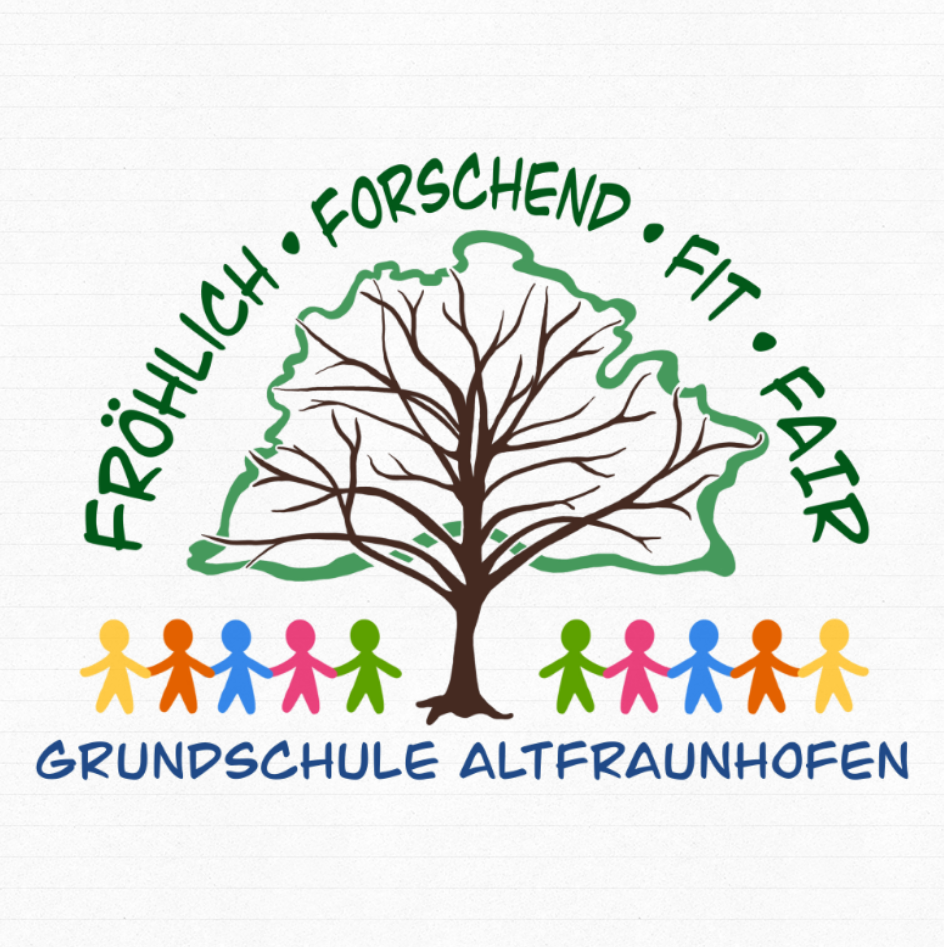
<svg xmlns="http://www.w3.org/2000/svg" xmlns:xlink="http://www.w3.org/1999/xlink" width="944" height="947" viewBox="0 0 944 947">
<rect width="100%" height="100%" fill="#ffffff"/>
<image xlink:href="image0.png" x="0" y="0" width="944" height="947"/>
<image xlink:href="image1.png" x="35" y="151" width="875" height="631"/>
</svg>
